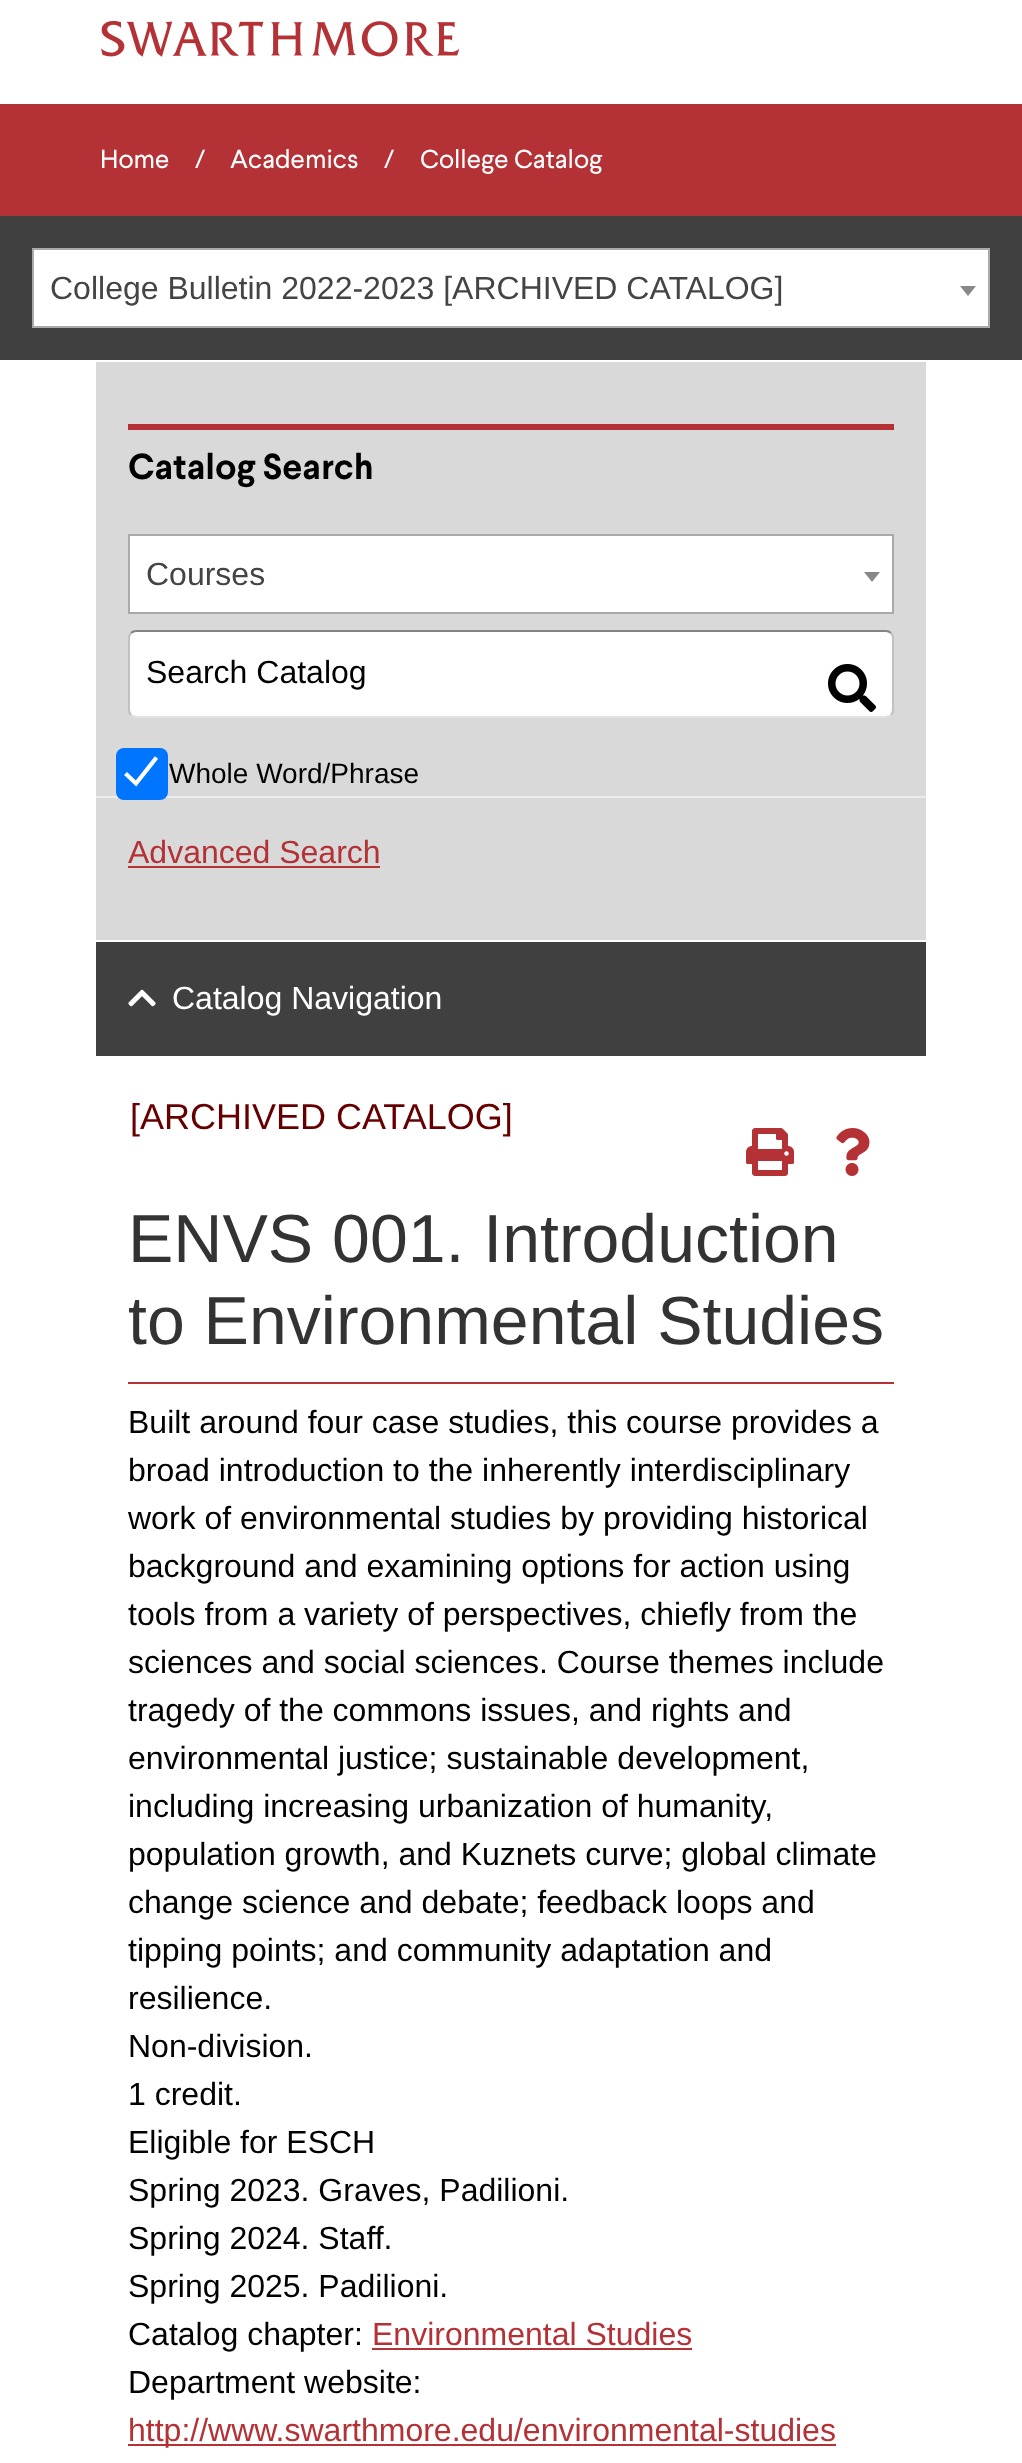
<svg xmlns="http://www.w3.org/2000/svg" xmlns:xlink="http://www.w3.org/1999/xlink" width="1022" height="2463" viewBox="0 0 1022 2463">
<style>
.cls-1{font:26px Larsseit;fill:#ffffff}
.cls-2{font:32px Liberation Sans;fill:#444444}
.cls-3{font:bold 36px Larsseit;fill:#000000}
.cls-4{font:32px Liberation Sans;fill:#000000}
.cls-5{font:28px Liberation Sans;fill:#000000}
.cls-6{font:32px Liberation Sans;fill:#b43135}
.cls-7{font:32px Liberation Sans;fill:#ffffff}
.cls-8{font:36px Liberation Sans;fill:#660000}
.cls-9{font:68px Liberation Sans;fill:#333333}
</style>
<rect width="100%" height="100%" fill="#ffffff"/>
<image xlink:href="image0.png" x="101" y="20" width="359" height="37"/>
<rect fill="#b43135" x="0" y="104" width="1022" height="112"/>
<rect fill="#404040" x="0" y="216" width="1022" height="144"/>
<rect fill="#ffffff" stroke="#aaaaaa" stroke-width="2" x="33" y="249" width="956" height="78"/>
<path fill="#888888" d="M960 286H976L968 296Z"/>
<rect fill="#d9d9d9" x="96" y="362" width="830" height="578"/>
<rect fill="#b43135" x="128" y="424" width="766" height="6"/>
<rect fill="#ffffff" stroke="#aaaaaa" stroke-width="2" x="129" y="535" width="764" height="78"/>
<path fill="#888888" d="M864 572H880L872 582Z"/>
<rect fill="#ffffff" x="130" y="632" width="762" height="84" rx="6"/>
<path fill="none" stroke="#848484" stroke-width="2" d="M131 633C132.5 631.5 134 631 136 631H886C888 631 889.5 631.5 891 633"/>
<path fill="none" stroke="#c1c1c1" stroke-width="2" d="M891 633C892.5 634.5 893 636 893 638V710C893 712 892.5 713.5 891 715"/>
<path fill="none" stroke="#e1e1e1" stroke-width="2" d="M891 715C889.5 716.5 888 717 886 717H136C134 717 132.5 716.5 131 715"/>
<path fill="none" stroke="#c1c1c1" stroke-width="2" d="M131 715C129.5 713.5 129 712 129 710V638C129 636 129.5 634.5 131 633"/>
<image xlink:href="image1.png" x="828" y="664" width="48" height="48"/>
<rect fill="#ececec" x="96" y="796" width="830" height="2"/>
<rect fill="#0075ff" x="116" y="748" width="52" height="52" rx="8"/>
<path fill="none" stroke="#ffffff" stroke-width="4.2" d="M125.5 773.5L136 783.5L156.5 757.5"/>
<rect fill="#b43135" x="128" y="866" width="252" height="2"/>
<rect fill="#404040" x="96" y="942" width="830" height="114"/>
<image xlink:href="image2.png" x="128" y="989" width="28" height="18"/>
<image xlink:href="image3.png" x="746" y="1128" width="48" height="48"/>
<image xlink:href="image4.png" x="836" y="1128" width="34" height="48"/>
<rect fill="#b43135" x="128" y="1382" width="766" height="2"/>
<rect fill="#b43135" x="372" y="2348" width="320" height="2"/>
<rect fill="#b43135" x="128" y="2444" width="708" height="2"/>
<text class="cls-1" x="100" y="168">Home</text>
<text class="cls-1" x="195" y="168">/</text>
<text class="cls-1" x="230" y="168">Academics</text>
<text class="cls-1" x="384" y="168">/</text>
<text class="cls-1" x="420" y="168">College Catalog</text>
<text class="cls-2" x="50" y="299">College Bulletin 2022-2023 [ARCHIVED CATALOG]</text>
<text class="cls-3" x="128" y="479">Catalog Search</text>
<text class="cls-2" x="146" y="585">Courses</text>
<text class="cls-4" x="146" y="683">Search Catalog</text>
<text class="cls-5" x="169" y="783">Whole Word/Phrase</text>
<text class="cls-6" x="128" y="863">Advanced Search</text>
<text class="cls-7" x="172" y="1009">Catalog Navigation</text>
<text class="cls-8" x="130" y="1129">[ARCHIVED CATALOG]</text>
<text class="cls-9"><tspan x="128" y="1262">ENVS 001. Introduction</tspan><tspan x="128" y="1344">to Environmental Studies</tspan></text>
<text class="cls-4"><tspan x="128" y="1433">Built around four case studies, this course provides a</tspan><tspan x="128" y="1481">broad introduction to the inherently interdisciplinary</tspan><tspan x="128" y="1529">work of environmental studies by providing historical</tspan><tspan x="128" y="1577">background and examining options for action using</tspan><tspan x="128" y="1625">tools from a variety of perspectives, chiefly from the</tspan><tspan x="128" y="1673">sciences and social sciences. Course themes include</tspan><tspan x="128" y="1721">tragedy of the commons issues, and rights and</tspan><tspan x="128" y="1769">environmental justice; sustainable development,</tspan><tspan x="128" y="1817">including increasing urbanization of humanity,</tspan><tspan x="128" y="1865">population growth, and Kuznets curve; global climate</tspan><tspan x="128" y="1913">change science and debate; feedback loops and</tspan><tspan x="128" y="1961">tipping points; and community adaptation and</tspan><tspan x="128" y="2009">resilience.</tspan><tspan x="128" y="2057">Non-division.</tspan><tspan x="128" y="2105">1 credit.</tspan><tspan x="128" y="2153">Eligible for ESCH</tspan><tspan x="128" y="2201">Spring 2023. Graves, Padilioni.</tspan><tspan x="128" y="2249">Spring 2024. Staff.</tspan><tspan x="128" y="2297">Spring 2025. Padilioni.</tspan><tspan x="128" y="2345">Catalog chapter:</tspan></text>
<text class="cls-6" x="372" y="2345">Environmental Studies</text>
<text class="cls-4" x="128" y="2393">Department website:</text>
<text class="cls-6" x="128" y="2441">http://www.swarthmore.edu/environmental-studies</text>
</svg>
